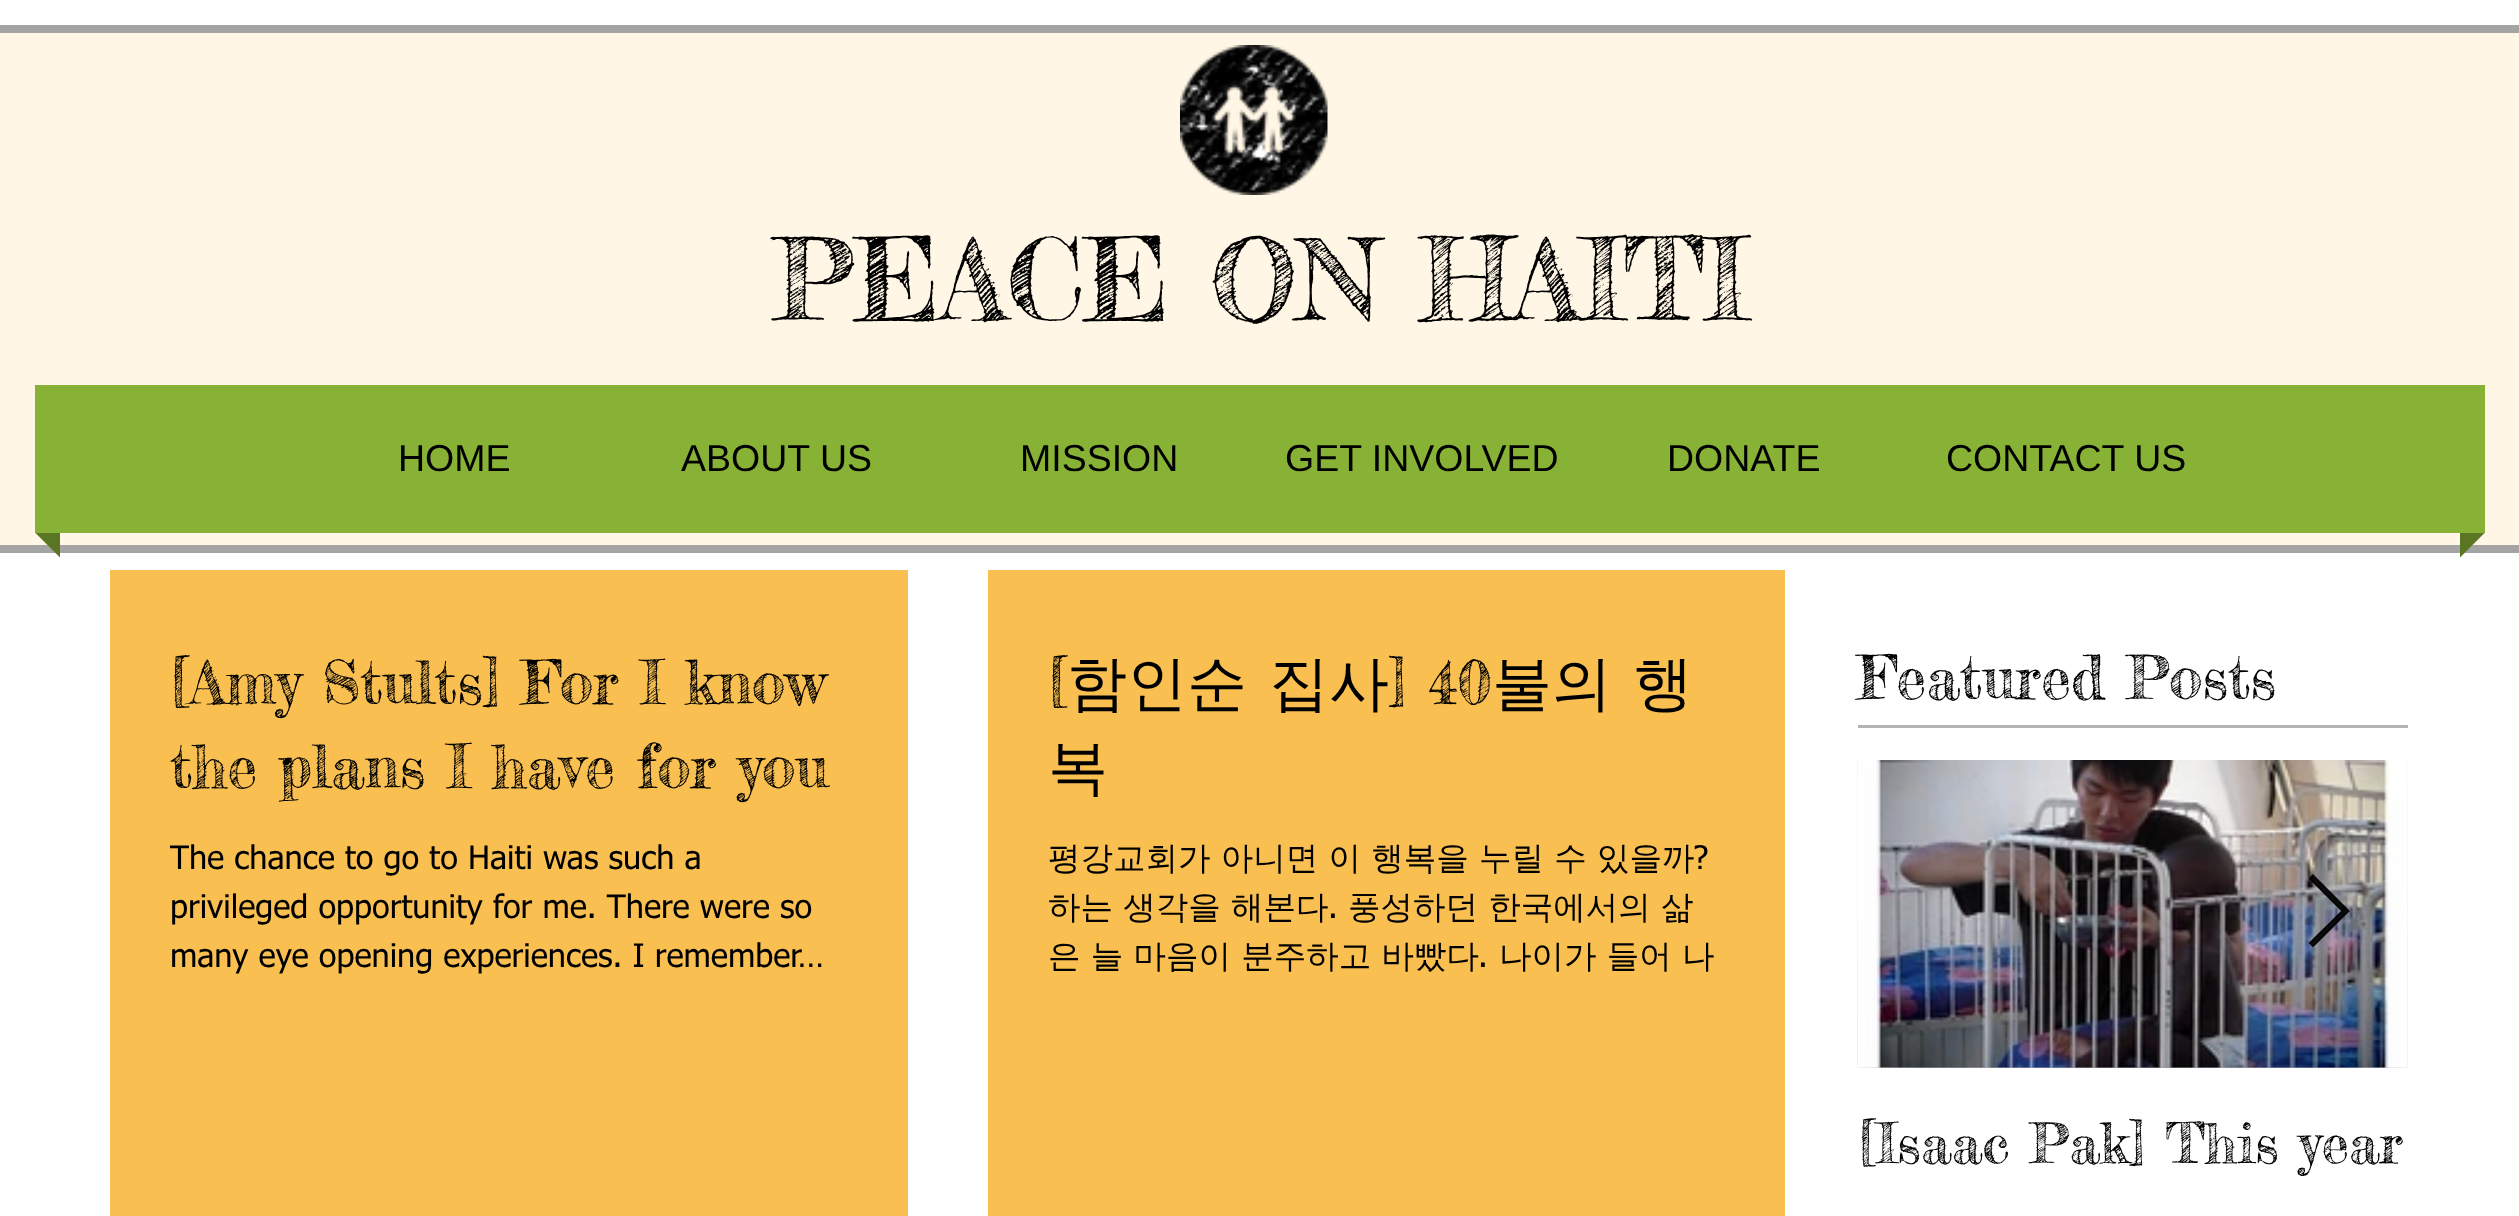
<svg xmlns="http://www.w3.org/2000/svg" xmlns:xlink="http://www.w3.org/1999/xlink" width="2519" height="1216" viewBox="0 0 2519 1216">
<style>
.cls-1{font:112.5px Fredericka the Great;fill:#000000}
.cls-2{font:37.5px Liberation Sans;fill:#000000}
.cls-3{font:60px Fredericka the Great;fill:#000000}
.cls-4{font:32.5px tahoma;fill:#000000}
.cls-5{font:500 60px WenQuanYi Zen Hei;fill:#000000}
.cls-6{font:500 32.5px WenQuanYi Zen Hei;fill:#000000}
.cls-7{font:55px Fredericka the Great;fill:#000000}
</style>
<rect width="100%" height="100%" fill="#ffffff"/>
<rect fill="#fff6e5" x="0" y="33" width="2519" height="512"/>
<image xlink:href="image0.png" x="1180" y="45" width="148" height="150"/>
<rect fill="#a4a4a4" x="0" y="25" width="2519" height="8"/>
<rect fill="#a4a4a4" x="0" y="545" width="2519" height="8"/>
<path fill="#5b7623" d="M35 532.5H60V557.5Z"/>
<path fill="#5b7623" d="M2460 532.5H2485L2460 557.5Z"/>
<rect fill="#88b235" x="35" y="385" width="2450" height="148"/>
<rect fill="#f9bf51" x="110" y="570" width="798" height="646"/>
<rect fill="#f9bf51" x="988" y="570" width="797" height="646"/>
<rect fill="#b3b3b3" x="1858" y="725" width="550" height="3"/>
<image xlink:href="image1.png" x="1857" y="760" width="551" height="308"/>
<image xlink:href="image2.png" x="1857" y="760" width="551" height="308"/>
<path fill="#000000" fill-opacity="0.9" d="M2310 879L2313 876L2348 911L2313 946L2310 943L2342 911Z"/>
<path fill="none" stroke="#000000" stroke-opacity="0.9" stroke-width="2" d="M2310 878.5L2313 875.5L2348.5 911L2313 946L2310 943L2342.5 911Z"/>
<text class="cls-1" x="773" y="320">PEACE ON HAITI</text>
<text class="cls-2" x="398" y="471">HOME</text>
<text class="cls-2" x="681" y="471">ABOUT US</text>
<text class="cls-2" x="1020" y="471">MISSION</text>
<text class="cls-2" x="1285" y="471">GET INVOLVED</text>
<text class="cls-2" x="1667" y="471">DONATE</text>
<text class="cls-2" x="1946" y="471">CONTACT US</text>
<text class="cls-3"><tspan x="170" y="704">[Amy Stults] For I know</tspan><tspan x="170" y="788">the plans I have for you</tspan></text>
<text class="cls-4"><tspan x="170" y="869">The chance to go to Haiti was such a</tspan><tspan x="170" y="918">privileged opportunity for me. There were so</tspan><tspan x="170" y="967">many eye opening experiences. I remember…</tspan></text>
<text class="cls-3" x="1048" y="704">[</text>
<text class="cls-5" x="1067" y="704">함인순</text>
<text class="cls-5" x="1269" y="704">집사</text>
<text class="cls-3" x="1389" y="704">] 40</text>
<text class="cls-5" x="1492" y="704">불의</text>
<text class="cls-5" x="1633" y="704">행</text>
<text class="cls-5" x="1048" y="788">복</text>
<text class="cls-6" x="1048" y="869" word-spacing="0.5">평강교회가 아니면 이 행복을 누릴 수 있을까</text>
<text class="cls-4" x="1693" y="869">?</text>
<text class="cls-6" x="1048" y="918" word-spacing="0.5">하는 생각을 해본다</text>
<text class="cls-4" x="1328" y="918">.</text>
<text class="cls-6" x="1348" y="918" word-spacing="0.5">풍성하던 한국에서의 삶</text>
<text class="cls-6" x="1048" y="967" word-spacing="0.5">은 늘 마음이 분주하고 바빴다</text>
<text class="cls-4" x="1478" y="967">.</text>
<text class="cls-6" x="1499" y="967" word-spacing="0.5">나이가 들어 나</text>
<text class="cls-3" x="1858" y="699">Featured Posts</text>
<text class="cls-7" x="1858" y="1163">[Isaac Pak] This year</text>
</svg>
